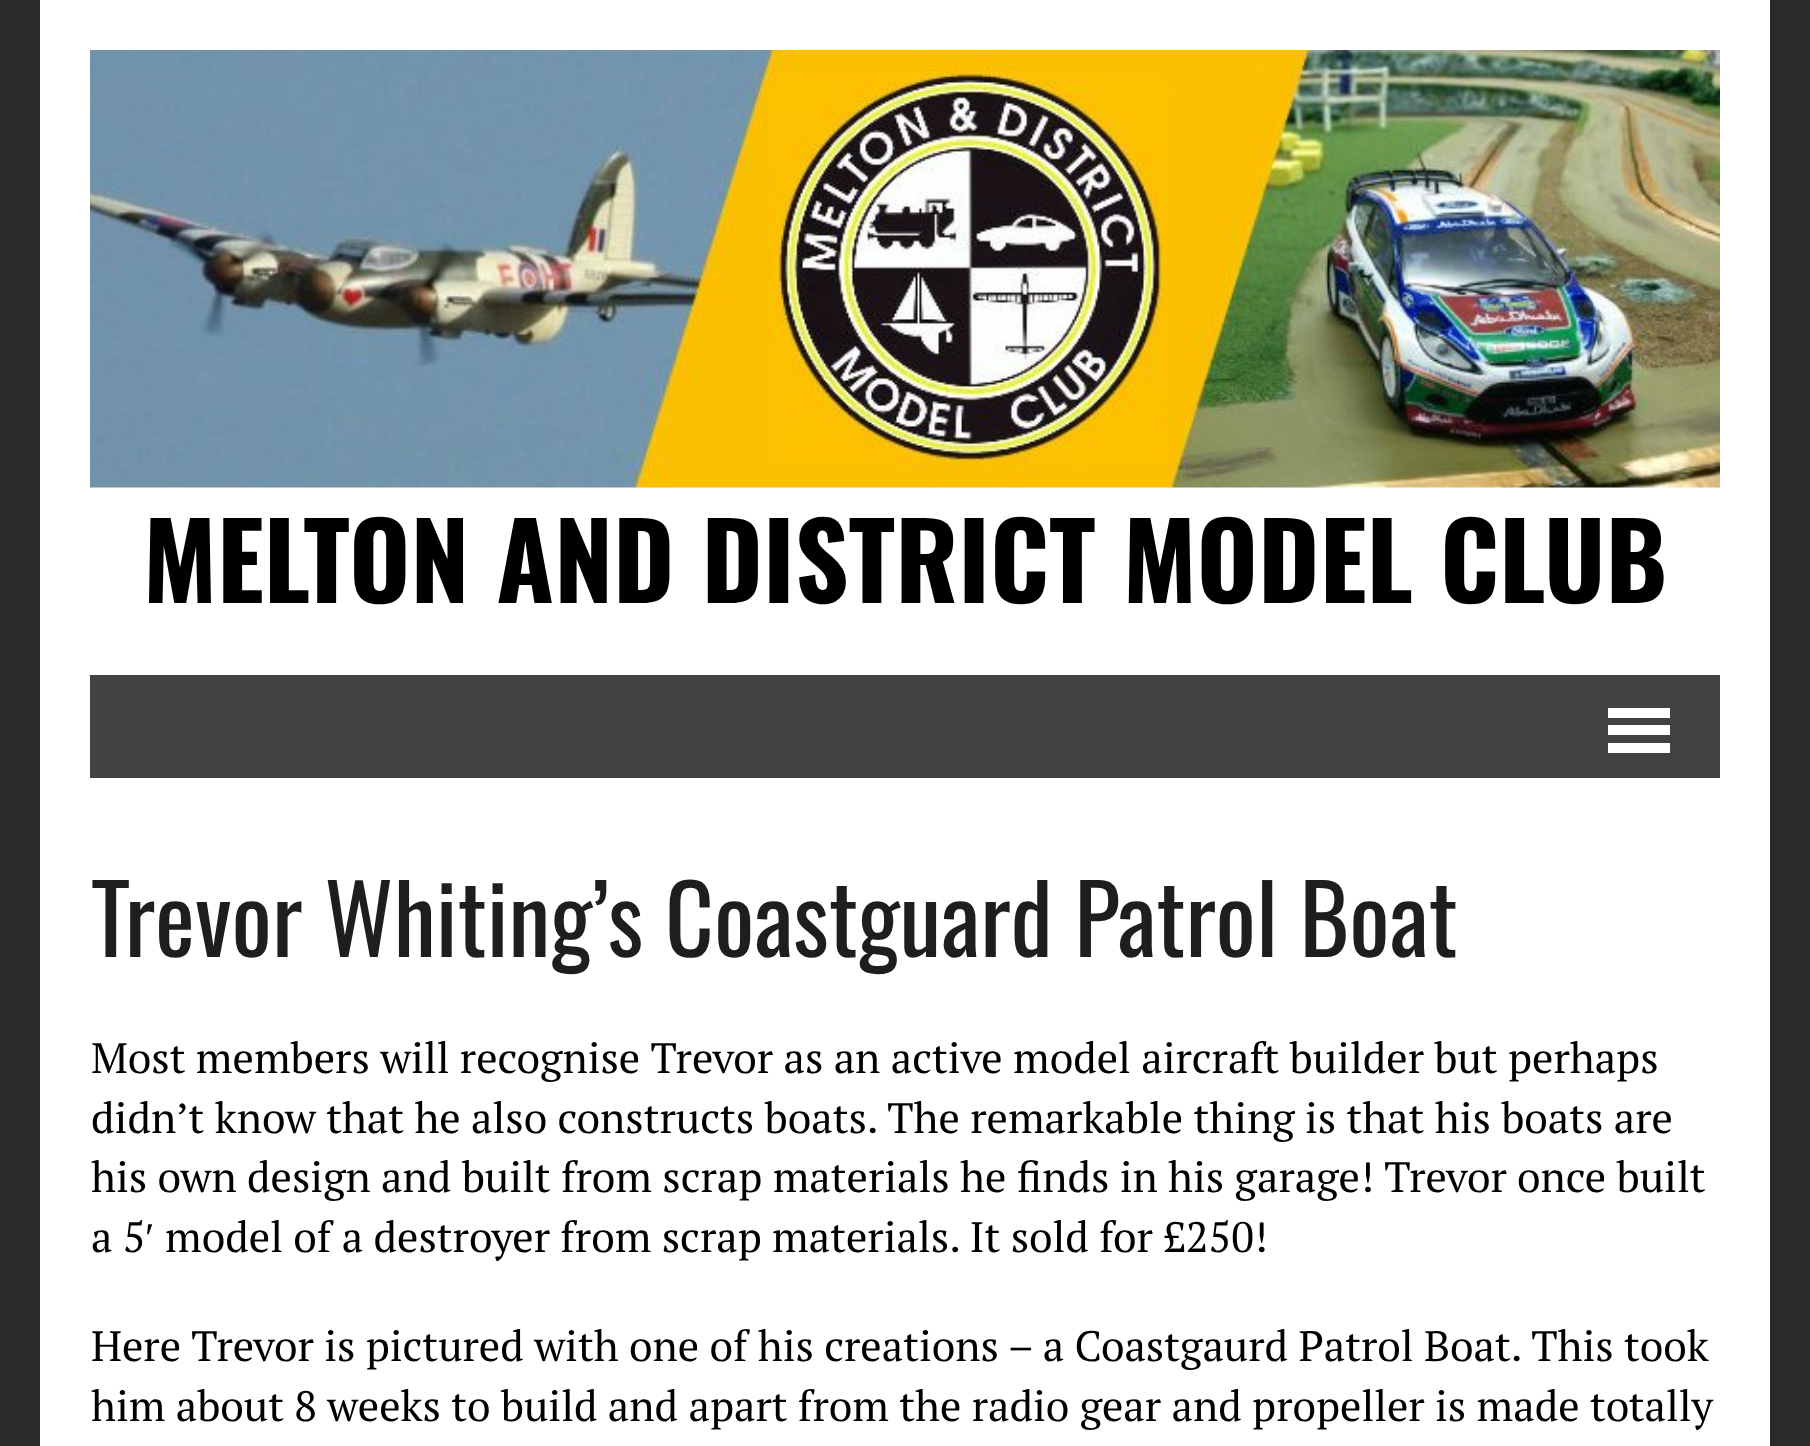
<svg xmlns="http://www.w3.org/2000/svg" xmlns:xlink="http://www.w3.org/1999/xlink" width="1810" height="1446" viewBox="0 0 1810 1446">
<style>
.cls-1{font:bold 105px Oswald;fill:#000000}
.cls-2{font:95px Oswald;fill:#1f1e1e}
.cls-3{font:42.5px PT Serif;fill:#000000}
.cls-4{font:42.5px Liberation Serif;fill:#000000}
</style>
<rect width="100%" height="100%" fill="#2a2a2a"/>
<rect fill="#ffffff" x="40" y="0" width="1730" height="1446"/>
<image xlink:href="image0.png" x="90" y="50" width="1630" height="438"/>
<rect fill="#424242" x="90" y="675" width="1630" height="103"/>
<rect fill="#ffffff" x="1608" y="708" width="62" height="10"/>
<rect fill="#ffffff" x="1608" y="725" width="62" height="10"/>
<rect fill="#ffffff" x="1608" y="743" width="62" height="10"/>
<text class="cls-1" x="143" y="603">MELTON AND DISTRICT MODEL CLUB</text>
<text class="cls-2" x="91" y="957">Trevor Whiting’s Coastguard Patrol Boat</text>
<text class="cls-3"><tspan x="91" y="1073">Most members will recognise Trevor as an active model aircraft builder but perhaps</tspan><tspan x="91" y="1133">didn’t know that he also constructs boats. The remarkable thing is that his boats are</tspan><tspan x="91" y="1192">his own design and built from scrap materials he finds in his garage! Trevor once built</tspan><tspan x="91" y="1252">a 5</tspan></text>
<text class="cls-4" x="145" y="1252">′</text>
<text class="cls-3" x="165" y="1252">model of a destroyer from scrap materials. It sold for £250!</text>
<text class="cls-3"><tspan x="91" y="1361">Here Trevor is pictured with one of his creations – a Coastgaurd Patrol Boat. This took</tspan><tspan x="91" y="1421">him about 8 weeks to build and apart from the radio gear and propeller is made totally</tspan></text>
</svg>
